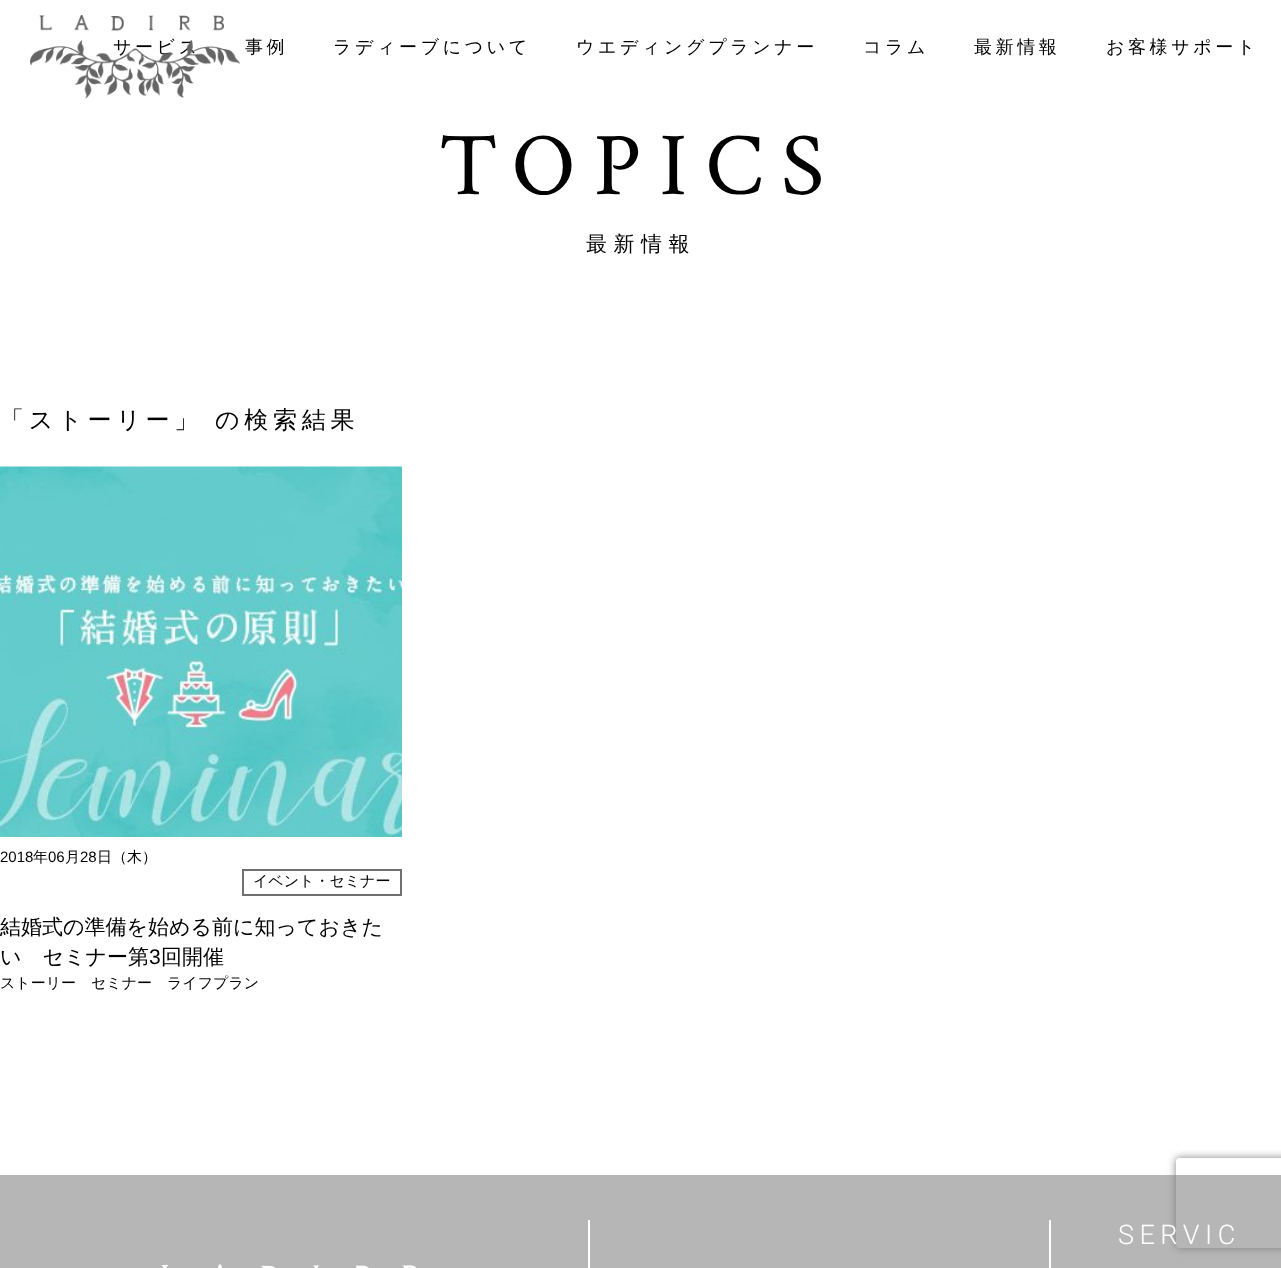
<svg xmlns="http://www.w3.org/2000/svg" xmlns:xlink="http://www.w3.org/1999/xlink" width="1281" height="1268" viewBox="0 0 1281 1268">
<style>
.cls-1{font:500 18px WenQuanYi Zen Hei;letter-spacing:3.6px;fill:#000000}
.cls-2{font:90px Crimson Text;letter-spacing:18px;fill:#000000}
.cls-3{font:500 21px WenQuanYi Zen Hei;letter-spacing:6.5px;fill:#000000}
.cls-4{font:500 24px WenQuanYi Zen Hei;letter-spacing:4.75px;fill:#000000}
.cls-5{font:15px Liberation Sans;fill:#000000}
.cls-6{font:500 15px WenQuanYi Zen Hei;fill:#000000}
.cls-7{font:500 21px WenQuanYi Zen Hei;fill:#000000}
.cls-8{font:21px Liberation Sans;fill:#000000}
.cls-9{font:300 27px Roboto;letter-spacing:5.5px;fill:#ffffff}
</style>
<defs>
<clipPath id="clip1"><path d="M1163 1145H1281V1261H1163ZM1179 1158H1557C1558.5 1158 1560 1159.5 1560 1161V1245C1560 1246.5 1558.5 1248 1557 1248H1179C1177.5 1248 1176 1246.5 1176 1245V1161C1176 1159.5 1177.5 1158 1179 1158Z" clip-rule="evenodd"/></clipPath>
</defs>
<rect width="100%" height="100%" fill="#ffffff"/>
<image xlink:href="image1.png" x="0" y="466" width="402" height="371"/>
<rect fill="none" stroke="#707070" stroke-width="2" x="243" y="870" width="158" height="25"/>
<rect fill="#b6b6b6" x="0" y="1175" width="1281" height="93"/>
<g clip-path="url(#clip1)">
<rect fill="#808080" filter="blur(4px)" x="1176" y="1158" width="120" height="90" rx="3"/>
</g>
<rect fill="#ffffff" x="588" y="1220" width="2" height="48"/>
<image xlink:href="image2.png" x="161" y="1264" width="255" height="4"/>
<rect fill="#ffffff" x="1049" y="1220" width="2" height="48"/>
<text class="cls-1" x="113" y="53">サービス</text>
<image xlink:href="image0.png" x="30" y="15" width="210" height="84"/>
<text class="cls-1" x="245" y="53">事例</text>
<text class="cls-1" x="333" y="53">ラディーブについて</text>
<text class="cls-1" x="576" y="53">ウエディングプランナー</text>
<text class="cls-1" x="863" y="53">コラム</text>
<text class="cls-1" x="974" y="53">最新情報</text>
<text class="cls-1" x="1106" y="53">お客様サポート</text>
<text class="cls-2" x="439" y="194">TOPICS</text>
<text class="cls-3" x="586" y="251">最新情報</text>
<text class="cls-4" x="0" y="428">「ストーリー」</text>
<text class="cls-4" x="215" y="428">の検索結果</text>
<text class="cls-5" x="0" y="862">2018</text>
<text class="cls-6" x="33" y="862">年</text>
<text class="cls-5" x="48" y="862">06</text>
<text class="cls-6" x="65" y="862">月</text>
<text class="cls-5" x="80" y="862">28</text>
<text class="cls-6" x="97" y="862">日（木）</text>
<text class="cls-6" x="253" y="886">イベント・セミナー</text>
<text class="cls-7"><tspan x="0" y="934">結婚式の準備を始める前に知っておきた</tspan><tspan x="0" y="964">い　セミナー第</tspan></text>
<text class="cls-8" x="149" y="964">3</text>
<text class="cls-7" x="161" y="964">回開催</text>
<text class="cls-6" x="0" y="988">ストーリー</text>
<text class="cls-6" x="91" y="988">セミナー</text>
<text class="cls-6" x="167" y="988">ライフプラン</text>
<text class="cls-9" x="1118" y="1244">SERVIC</text>
</svg>
